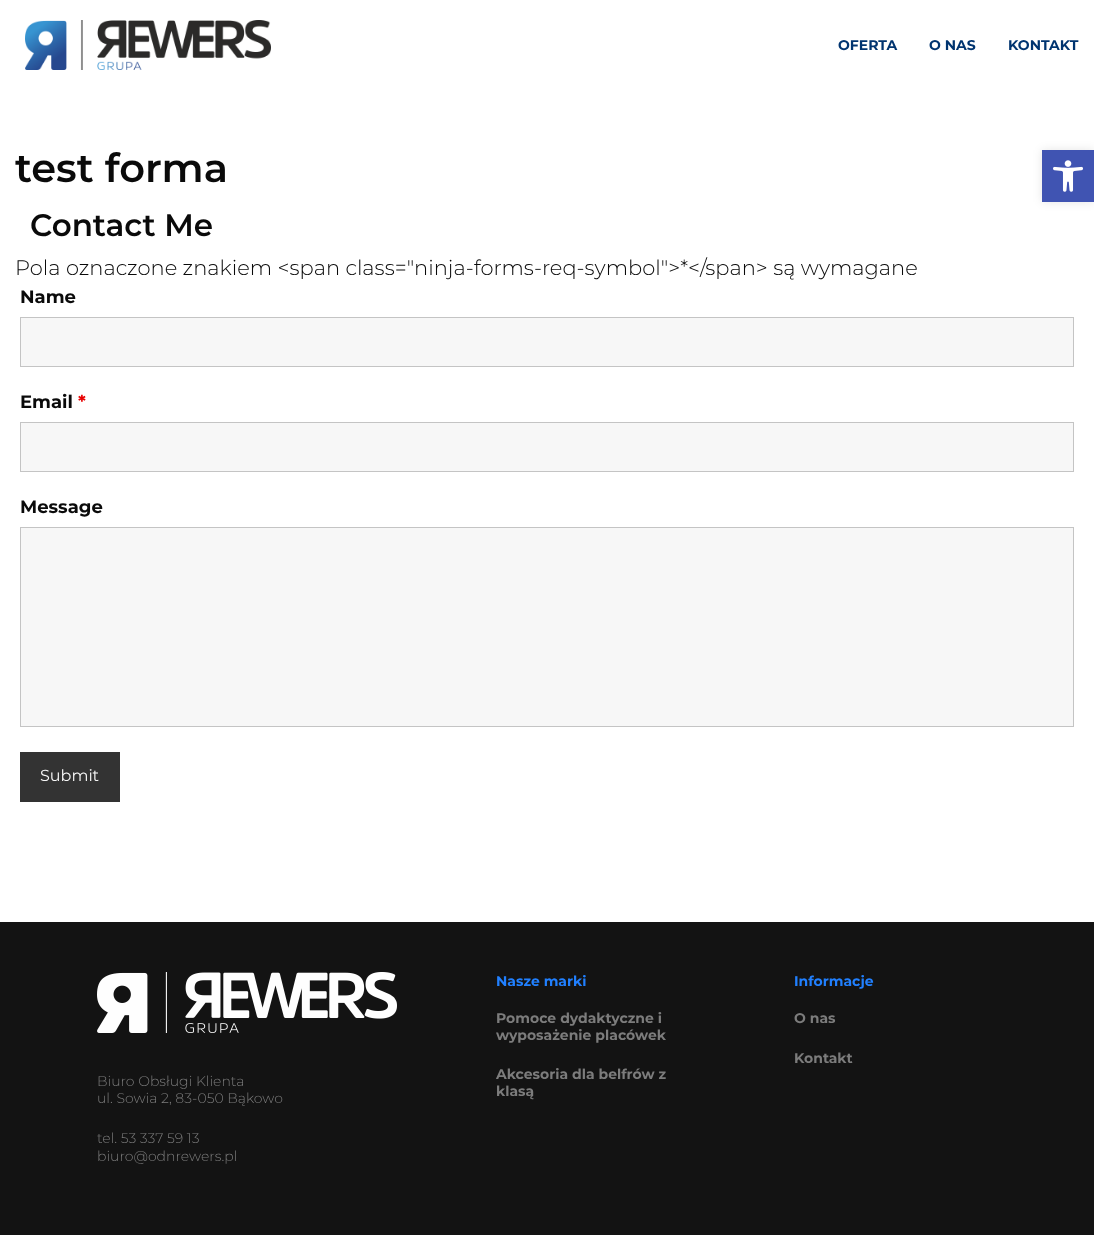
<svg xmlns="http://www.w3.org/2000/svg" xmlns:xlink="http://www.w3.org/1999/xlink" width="1094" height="1235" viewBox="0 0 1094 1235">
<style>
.cls-1{font:bold 14px Montserrat;fill:#003470}
.cls-2{font:600 40px Montserrat;fill:#0a0a0a}
.cls-3{font:600 31px Montserrat;fill:#0a0a0a}
.cls-4{font:300 21px Montserrat;fill:#0a0a0a}
.cls-5{font:bold 18px Montserrat;fill:#0a0a0a}
.cls-6{font:bold 18px Montserrat;fill:#e80000}
.cls-7{font:16px Montserrat;fill:#f7f7f7}
.cls-8{font:bold 14px Montserrat;fill:#2180ff}
.cls-9{font:bold 14px Montserrat;fill:#7c7c7c}
.cls-10{font:300 14px Montserrat;fill:#7c7c7c}
</style>
<rect width="100%" height="100%" fill="#ffffff"/>
<image xlink:href="image0.png" x="25" y="20" width="246" height="50"/>
<rect fill="#f7f7f7" stroke="#c4c4c4" x="20.5" y="317.5" width="1053" height="49"/>
<rect fill="#f7f7f7" stroke="#c4c4c4" x="20.5" y="422.5" width="1053" height="49"/>
<rect fill="#f7f7f7" stroke="#c4c4c4" x="20.5" y="527.5" width="1053" height="199"/>
<rect fill="#333333" x="20" y="752" width="100" height="50"/>
<rect fill="#131313" x="0" y="922" width="1094" height="313"/>
<image xlink:href="image1.png" x="97" y="972" width="300" height="61"/>
<rect fill="#000000" fill-opacity="0.1" filter="blur(5px)" x="1042" y="150" width="52" height="52"/>
<rect fill="#4054b2" x="1042" y="150" width="52" height="52"/>
<image xlink:href="image2.png" x="1053" y="160" width="30" height="32"/>
<text class="cls-1" x="838" y="50">OFERTA</text>
<text class="cls-1" x="929" y="50">O NAS</text>
<text class="cls-1" x="1008" y="50">KONTAKT</text>
<text class="cls-2" x="15" y="182">test forma</text>
<text class="cls-3" x="30" y="236">Contact Me</text>
<text class="cls-4" x="15" y="275">Pola oznaczone znakiem &lt;span class="ninja-forms-req-symbol"&gt;*&lt;/span&gt; są wymagane</text>
<text class="cls-5" x="20" y="303">Name</text>
<text class="cls-5" x="20" y="408">Email</text>
<text class="cls-6" x="78" y="408">*</text>
<text class="cls-5" x="20" y="513">Message</text>
<text class="cls-7" x="40" y="781">Submit</text>
<text class="cls-8" x="496" y="986">Nasze marki</text>
<text class="cls-9"><tspan x="496" y="1023">Pomoce dydaktyczne i</tspan><tspan x="496" y="1040">wyposażenie placówek</tspan></text>
<text class="cls-9"><tspan x="496" y="1079">Akcesoria dla belfrów z</tspan><tspan x="496" y="1096">klasą</tspan></text>
<text class="cls-8" x="794" y="986">Informacje</text>
<text class="cls-9" x="794" y="1023">O nas</text>
<text class="cls-9" x="794" y="1063">Kontakt</text>
<text class="cls-10"><tspan x="97" y="1086">Biuro Obsługi Klienta</tspan><tspan x="97" y="1103">ul. Sowia 2, 83-050 Bąkowo</tspan></text>
<text class="cls-10"><tspan x="97" y="1143">tel. 53 337 59 13</tspan><tspan x="97" y="1161">biuro@odnrewers.pl</tspan></text>
</svg>
